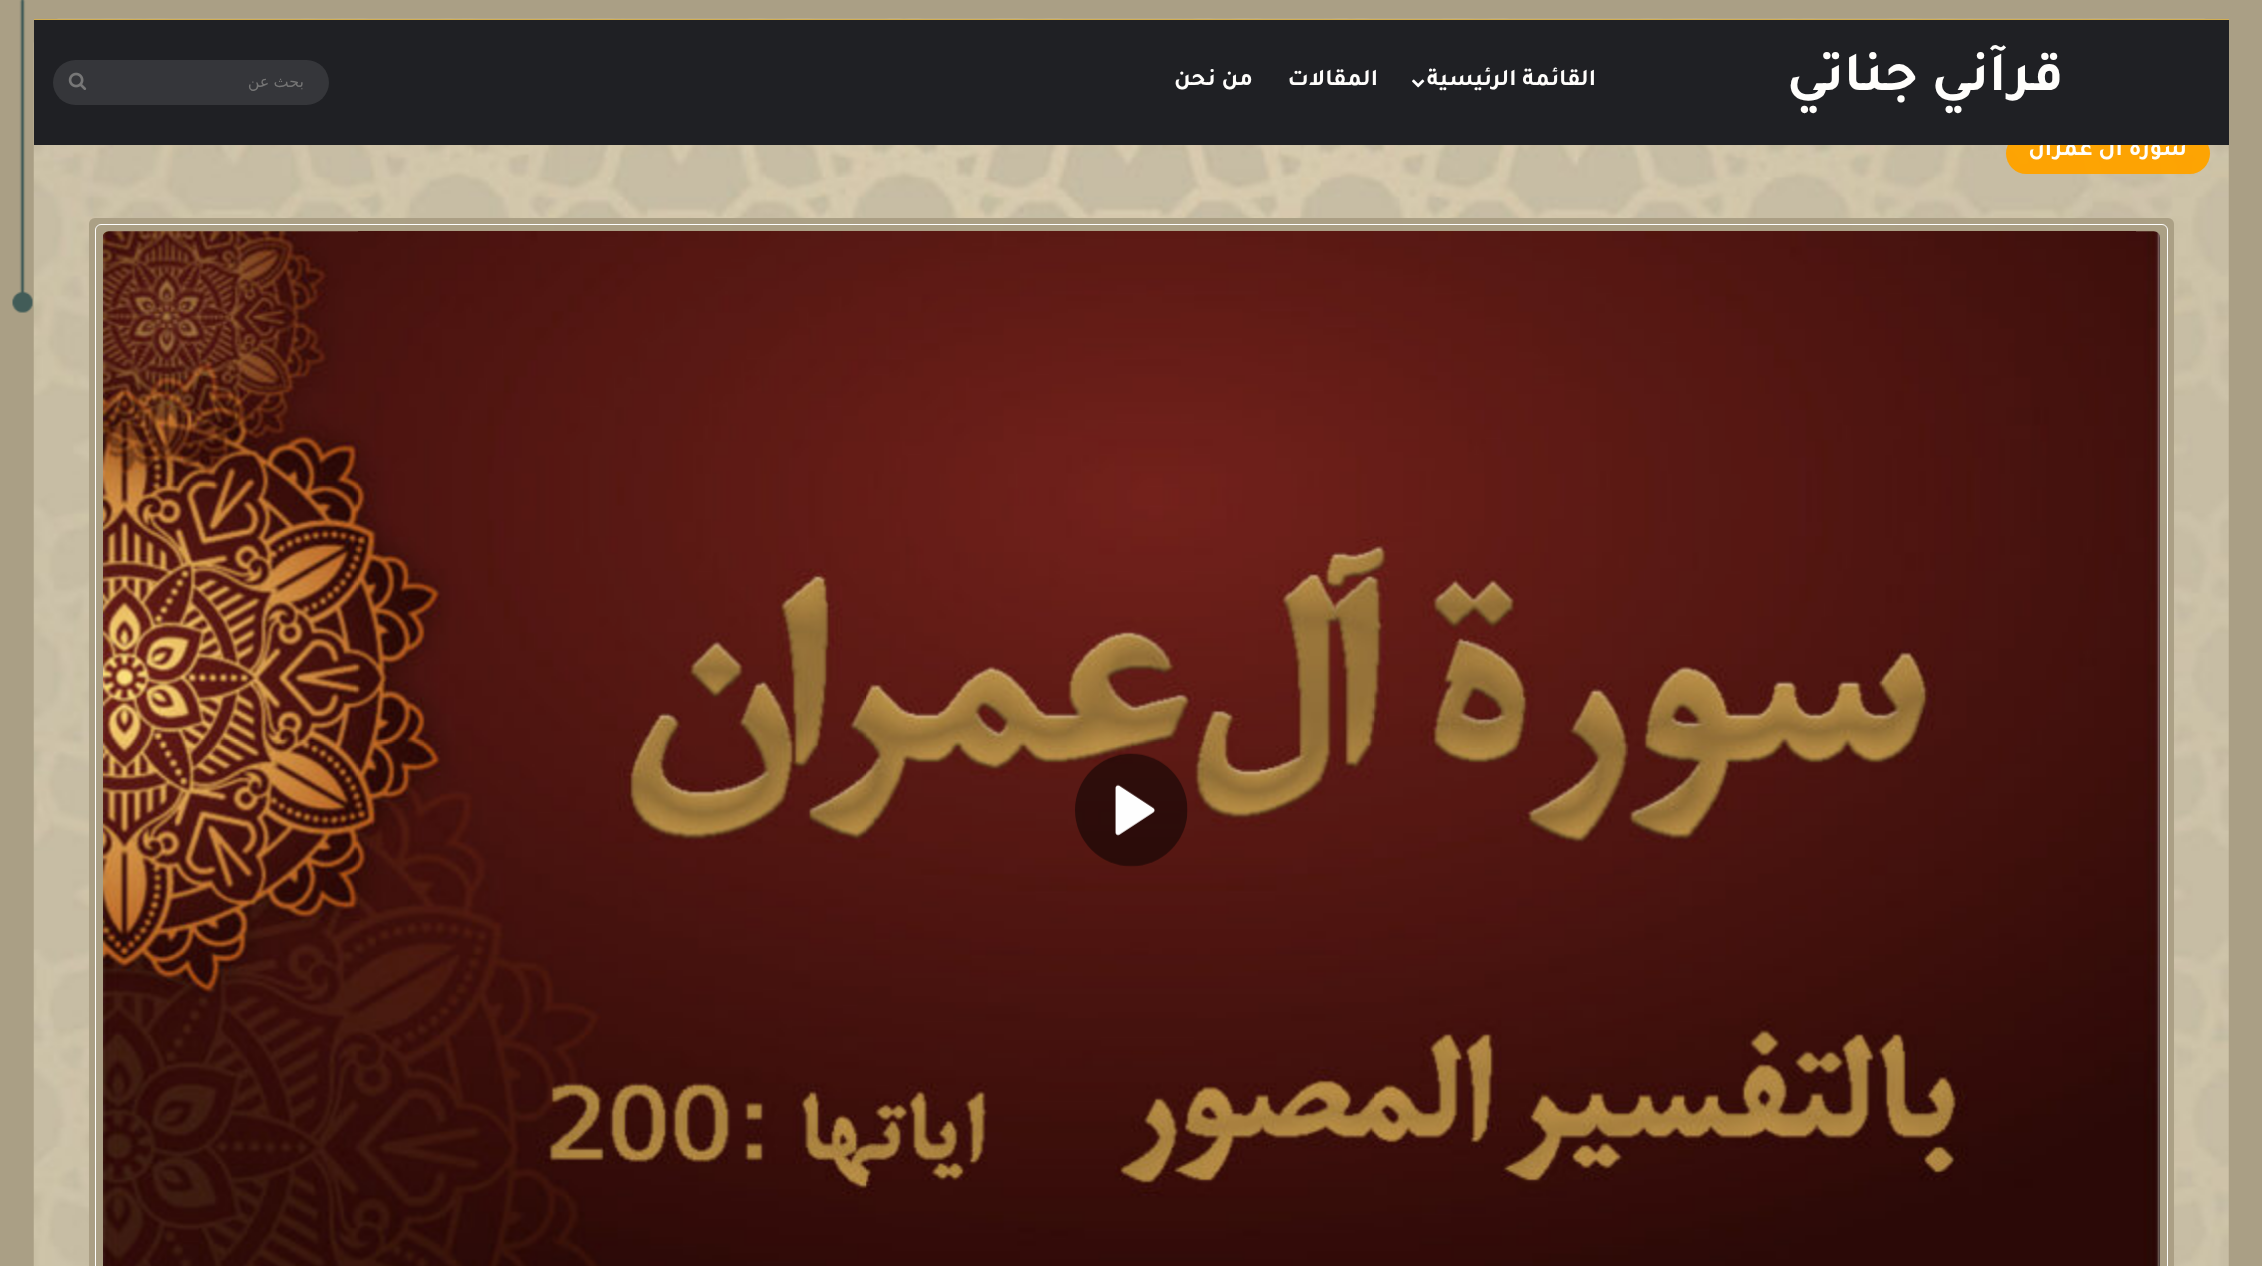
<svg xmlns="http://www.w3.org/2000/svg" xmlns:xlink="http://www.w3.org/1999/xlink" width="2262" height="1266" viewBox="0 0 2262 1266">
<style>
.cls-1{font:bold 23.75px Tajawal;direction:rtl;fill:#fffefc}
.cls-2{font:16px DejaVu Sans;direction:rtl;fill:#757575}
.cls-3{font:bold 56.25px Tajawal;direction:rtl;fill:#fffefc}
</style>
<rect width="100%" height="100%" fill="#aa9f85"/>
<image xlink:href="image0.png" x="33" y="18" width="2196" height="1248"/>
<rect fill="#d2ae51" x="34" y="19" width="2195" height="1"/>
<image xlink:href="image3.png" x="12" y="0" width="21" height="313"/>
<rect fill="#fda301" fill-opacity="0.99" x="2006" y="133" width="204" height="41" rx="20.5"/>
<rect fill="#aa9f85" fill-opacity="0.99" x="89" y="218" width="2085" height="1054" rx="6"/>
<rect fill="none" stroke="#fefefe" x="95.5" y="224.5" width="2072" height="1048" rx="5.5"/>
<image xlink:href="image4.png" x="103" y="231" width="2057" height="1035"/>
<text class="cls-1" x="2187" y="155">سورة آل عمران</text>
<rect fill="#1f2024" x="34" y="20" width="2195" height="125"/>
<rect fill="#35363a" x="53" y="60" width="276" height="45" rx="22.5"/>
<image xlink:href="image2.png" x="68" y="72" width="19" height="18"/>
<text class="cls-2" x="304" y="87" word-spacing="-1">بحث عن</text>
<text class="cls-1" x="1253" y="85">من نحن</text>
<text class="cls-1" x="1378" y="85">المقالات</text>
<image xlink:href="image1.png" x="1412" y="79" width="13" height="9"/>
<text class="cls-1" x="1596" y="85">القائمة الرئيسية</text>
<text class="cls-3" x="2064" y="90">قرآني جناتي</text>
</svg>
